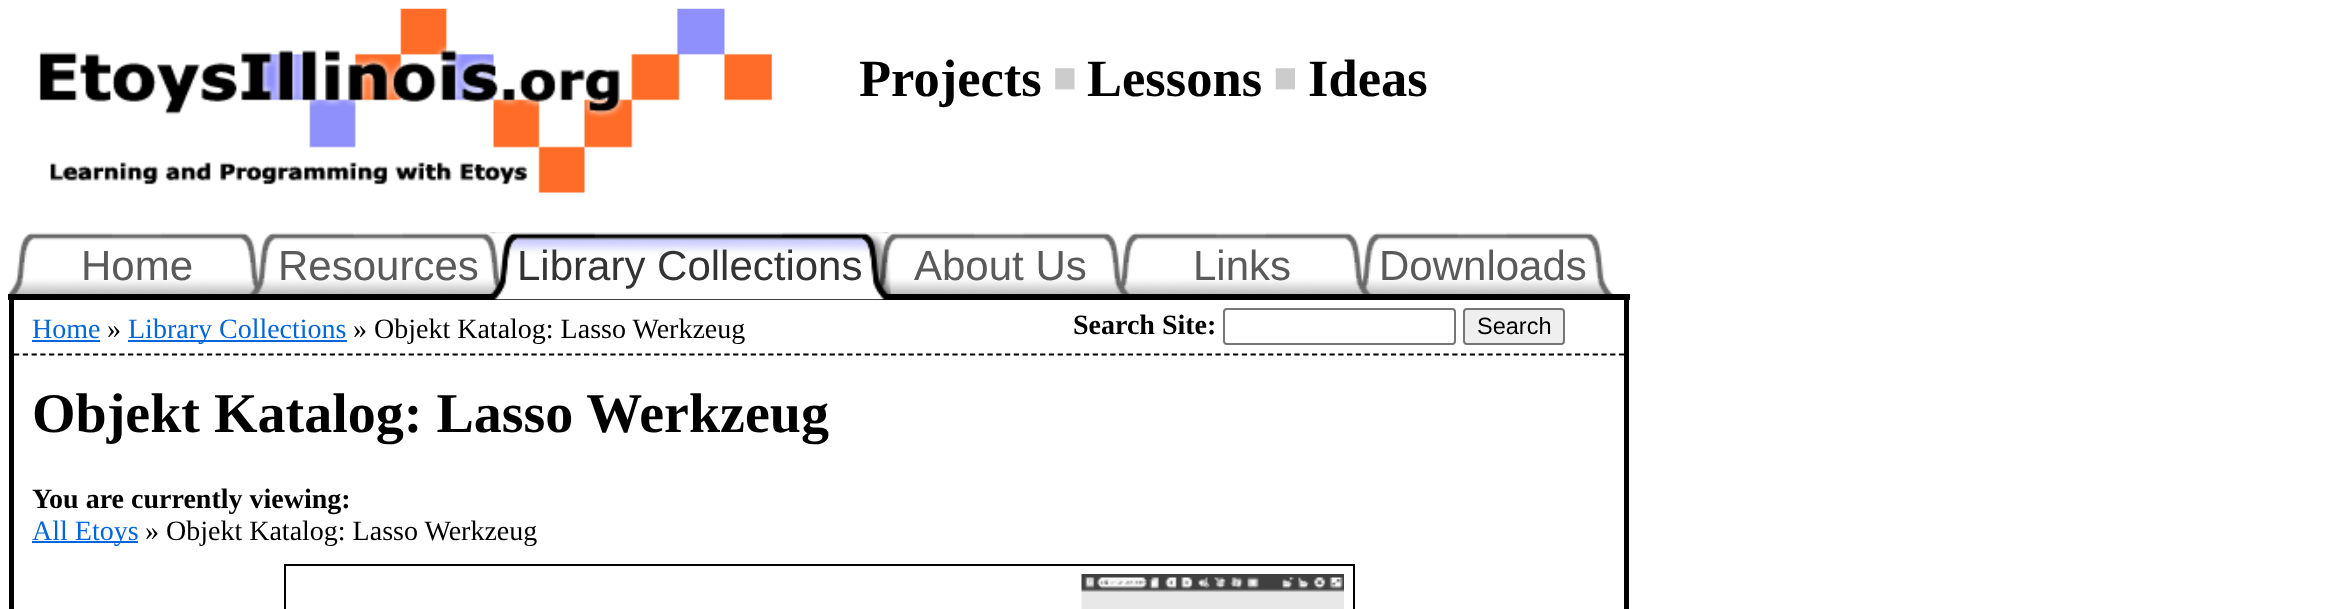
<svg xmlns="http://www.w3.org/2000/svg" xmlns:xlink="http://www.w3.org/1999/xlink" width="2328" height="609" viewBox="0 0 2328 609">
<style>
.cls-1{font:bold 52.5px Liberation Serif;fill:#000000}
.cls-2{font:42px Liberation Sans;fill:#5a5a5a}
.cls-3{font:42px Liberation Sans;fill:#333333}
.cls-4{font:28px Liberation Serif;fill:#0066dd}
.cls-5{font:28px Liberation Serif;fill:#000000}
.cls-6{font:bold 28px Liberation Serif;fill:#000000}
.cls-7{font:23.5px Liberation Sans;fill:#000000}
.cls-8{font:bold 56px Liberation Serif;fill:#000000}
</style>
<rect width="100%" height="100%" fill="#ffffff"/>
<image xlink:href="image0.png" x="39" y="8" width="733" height="185"/>
<image xlink:href="image1.png" x="1055" y="68" width="20" height="22"/>
<image xlink:href="image2.png" x="1275" y="68" width="20" height="22"/>
<image xlink:href="image3.png" x="8" y="232" width="255" height="62"/>
<image xlink:href="image4.png" x="248" y="232" width="257" height="62"/>
<image xlink:href="image8.png" x="1357" y="232" width="257" height="62"/>
<image xlink:href="image7.png" x="1116" y="232" width="257" height="62"/>
<image xlink:href="image6.png" x="874" y="232" width="257" height="62"/>
<rect fill="#000000" x="1624" y="299" width="5" height="310"/>
<rect fill="#000000" x="9" y="299" width="5" height="310"/>
<rect fill="#000000" x="8" y="294" width="1622" height="6"/>
<image xlink:href="image5.png" x="489" y="232" width="402" height="68"/>
<path fill="none" stroke="#000000" stroke-width="1.8" stroke-dasharray="5.25 3.52" d="M14 354.5H1624"/>
<rect fill="#0066dd" x="32" y="340" width="68" height="2"/>
<rect fill="#0066dd" x="128" y="340" width="219" height="2"/>
<rect fill="none" stroke="#767676" stroke-width="2" x="1224" y="309" width="231" height="35" rx="3"/>
<rect fill="#efefef" stroke="#767676" stroke-width="2" x="1464" y="309" width="100" height="35" rx="3"/>
<rect fill="#0066dd" x="32" y="541" width="106" height="2"/>
<rect fill="none" stroke="#000000" stroke-width="2" x="285" y="565" width="1069" height="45"/>
<image xlink:href="image9.png" x="1081" y="574" width="263" height="35"/>
<text class="cls-1" x="859" y="96">Projects</text>
<text class="cls-1" x="1087" y="96">Lessons</text>
<text class="cls-1" x="1308" y="96">Ideas</text>
<text class="cls-2" x="81" y="280">Home</text>
<text class="cls-2" x="278" y="280">Resources</text>
<text class="cls-3" x="517" y="280">Library Collections</text>
<text class="cls-2" x="914" y="280">About Us</text>
<text class="cls-2" x="1193" y="280">Links</text>
<text class="cls-2" x="1379" y="280">Downloads</text>
<text class="cls-4" x="32" y="338">Home</text>
<text class="cls-5" x="107" y="338">»</text>
<text class="cls-4" x="128" y="338">Library Collections</text>
<text class="cls-5" x="353" y="338">» Objekt Katalog: Lasso Werkzeug</text>
<text class="cls-6" x="1073" y="334">Search Site:</text>
<text class="cls-7" x="1477" y="334">Search</text>
<text class="cls-8" x="32" y="432">Objekt Katalog: Lasso Werkzeug</text>
<text class="cls-6" x="32" y="508">You are currently viewing:</text>
<text class="cls-4" x="32" y="540">All Etoys</text>
<text class="cls-5" x="145" y="540">» Objekt Katalog: Lasso Werkzeug</text>
</svg>
